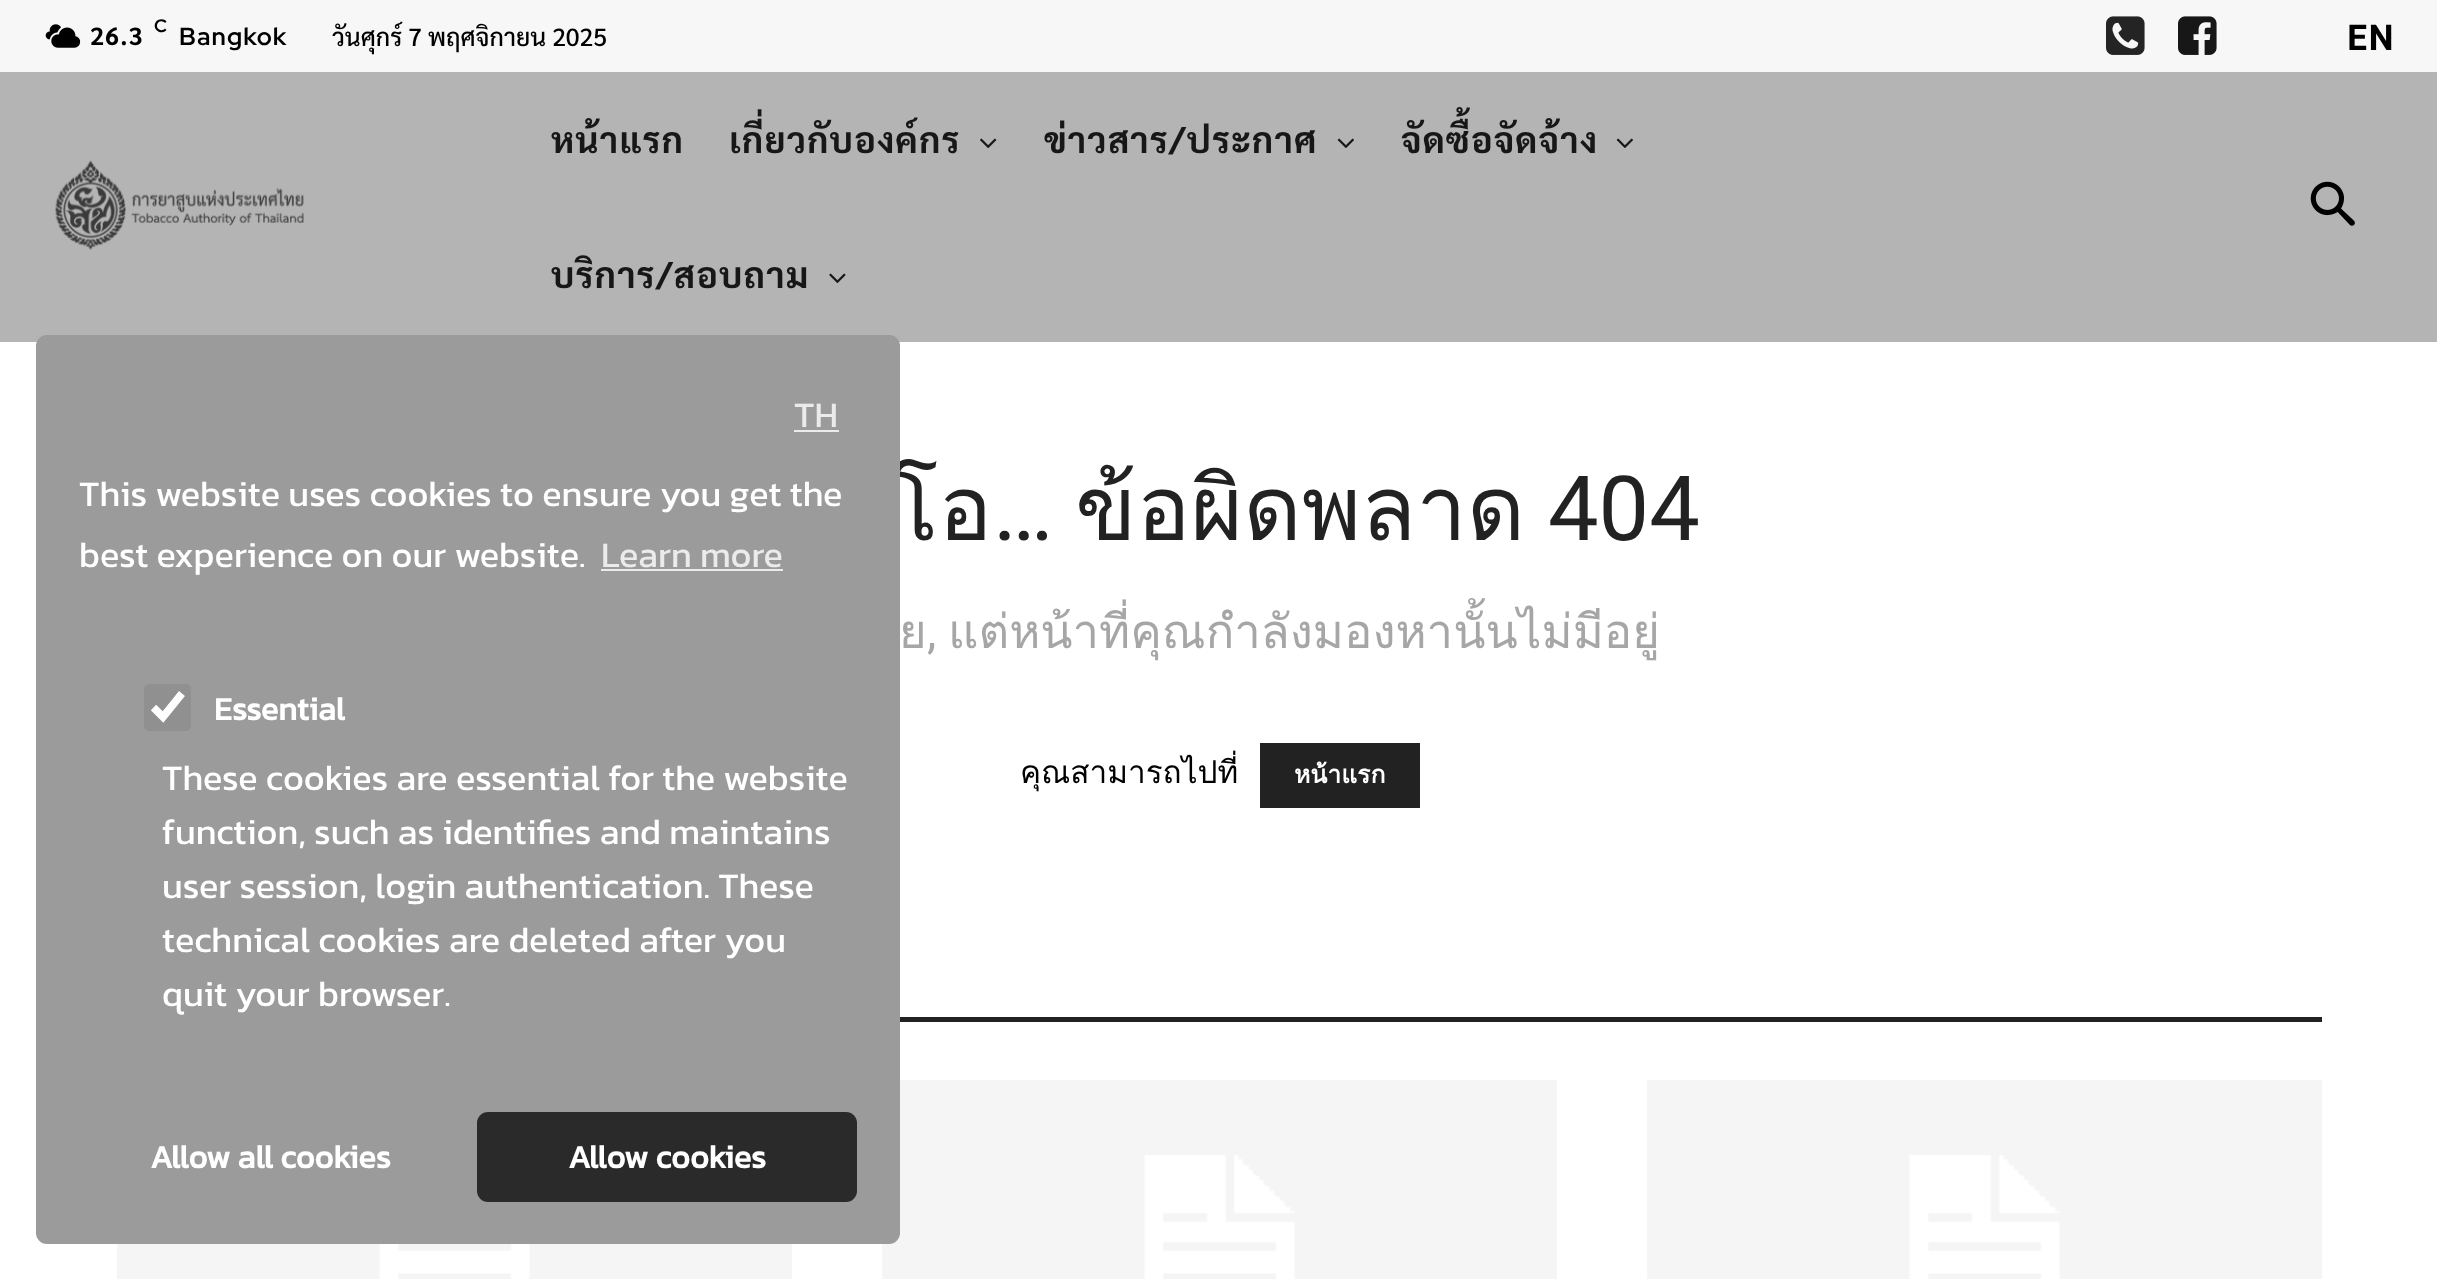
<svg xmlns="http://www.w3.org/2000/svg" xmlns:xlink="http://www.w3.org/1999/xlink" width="2437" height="1279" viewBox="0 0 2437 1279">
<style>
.cls-1{font:bold 24.75px Sarabun;letter-spacing:1.1px;fill:#000000}
.cls-2{font:bold 18px Red Hat Display;letter-spacing:1.1px;fill:#000000}
.cls-3{font:bold 24.75px Red Hat Display;letter-spacing:1.1px;fill:#000000}
.cls-4{font:500 24.75px Sarabun;fill:#000000}
.cls-5{font:bold 36px Sarabun;letter-spacing:1px;fill:#000000}
.cls-6{font:bold 36px Sarabun;letter-spacing:1.1px;fill:#171717}
.cls-7{font:90px Loma;fill:#222222}
.cls-8{font:90px Roboto;fill:#222222}
.cls-9{font:47.25px Loma;fill:#a6a6a6}
.cls-10{font:47.25px Roboto;fill:#a6a6a6}
.cls-11{font:31.5px Loma;fill:#000000}
.cls-12{font:bold 24.75px Loma;fill:#ffffff}
.cls-13{font:36px Kanit;fill:#ebebeb}
.cls-14{font:36px Kanit;fill:#ffffff}
.cls-15{font:bold 32.5px Kanit;fill:#ffffff}
</style>
<rect width="100%" height="100%" fill="#ffffff"/>
<rect fill="#f7f7f7" x="0" y="0" width="2437" height="72"/>
<image xlink:href="image0.png" x="45" y="24" width="36" height="24"/>
<image xlink:href="image1.png" x="2106" y="16" width="39" height="39"/>
<image xlink:href="image2.png" x="2178" y="16" width="39" height="39"/>
<rect fill="#b4b4b4" x="0" y="72" width="2437" height="270"/>
<image xlink:href="image3.png" x="55" y="160" width="249" height="90"/>
<image xlink:href="image4.png" x="980" y="138" width="17" height="10"/>
<image xlink:href="image5.png" x="1337" y="138" width="17" height="10"/>
<image xlink:href="image5.png" x="1616" y="138" width="17" height="10"/>
<image xlink:href="image6.png" x="829" y="273" width="17" height="10"/>
<image xlink:href="image7.png" x="2310" y="181" width="45" height="45"/>
<rect fill="#222222" x="1260" y="743" width="160" height="65"/>
<rect fill="#222222" x="900" y="1017" width="1422" height="5"/>
<image xlink:href="image8.png" x="117" y="1244" width="675" height="35"/>
<image xlink:href="image9.png" x="882" y="1080" width="675" height="199"/>
<image xlink:href="image9.png" x="1647" y="1080" width="675" height="199"/>
<text class="cls-1" x="90" y="45">26.3</text>
<text class="cls-2" x="154" y="32">C</text>
<text class="cls-3" x="179" y="45">Bangkok</text>
<text class="cls-4" x="332" y="46">วันศุกร์ 7 พฤศจิกายน 2025</text>
<text class="cls-5" x="2347" y="50">EN</text>
<text class="cls-6" x="551" y="153">หน้าแรก</text>
<text class="cls-6" x="729" y="153">เกี่ยวกับองค์กร</text>
<text class="cls-6" x="1044" y="153">ข่าวสาร/ประกาศ</text>
<text class="cls-6" x="1401" y="153">จัดซื้อจัดจ้าง</text>
<text class="cls-6" x="551" y="288">บริการ/สอบถาม</text>
<text class="cls-7" x="890" y="540">โอ</text>
<text class="cls-8" x="993" y="540">…</text>
<text class="cls-7" x="1075" y="540">ข้อผิดพลาด</text>
<text class="cls-8" x="1548" y="540">404</text>
<text class="cls-9" x="899" y="648">ย</text>
<text class="cls-10" x="927" y="648">,</text>
<text class="cls-9" x="948" y="648">แต่หน้าที่คุณกำลังมองหานั้นไม่มีอยู่</text>
<text class="cls-11" x="1020" y="783">คุณสามารถไปที่</text>
<text class="cls-12" x="1294" y="783">หน้าแรก</text>
<rect fill="#9b9b9b" x="36" y="335" width="864" height="909" rx="11"/>
<text class="cls-13" x="794" y="427">TH</text>
<rect fill="#ebebeb" x="794" y="430" width="45" height="2"/>
<text class="cls-14"><tspan x="79" y="506">This website uses cookies to ensure you get the</tspan><tspan x="79" y="567">best experience on our website.</tspan></text>
<text class="cls-13" x="601" y="567">Learn more</text>
<rect fill="#ebebeb" x="601" y="569" width="182" height="2"/>
<rect fill="#909090" x="144" y="684" width="47" height="47" rx="5"/>
<path fill="none" stroke="#ffffff" stroke-width="7.6" d="M153.5 707.5L163 717L182 693.5"/>
<text class="cls-15" x="214" y="720">Essential</text>
<text class="cls-14"><tspan x="162" y="790">These cookies are essential for the website</tspan><tspan x="162" y="844">function, such as identifies and maintains</tspan><tspan x="162" y="898">user session, login authentication. These</tspan><tspan x="162" y="952">technical cookies are deleted after you</tspan><tspan x="162" y="1006">quit your browser.</tspan></text>
<text class="cls-15" x="150" y="1168">Allow all cookies</text>
<rect fill="#2a2a2a" x="477" y="1112" width="380" height="90" rx="11"/>
<text class="cls-15" x="568" y="1168">Allow cookies</text>
</svg>
